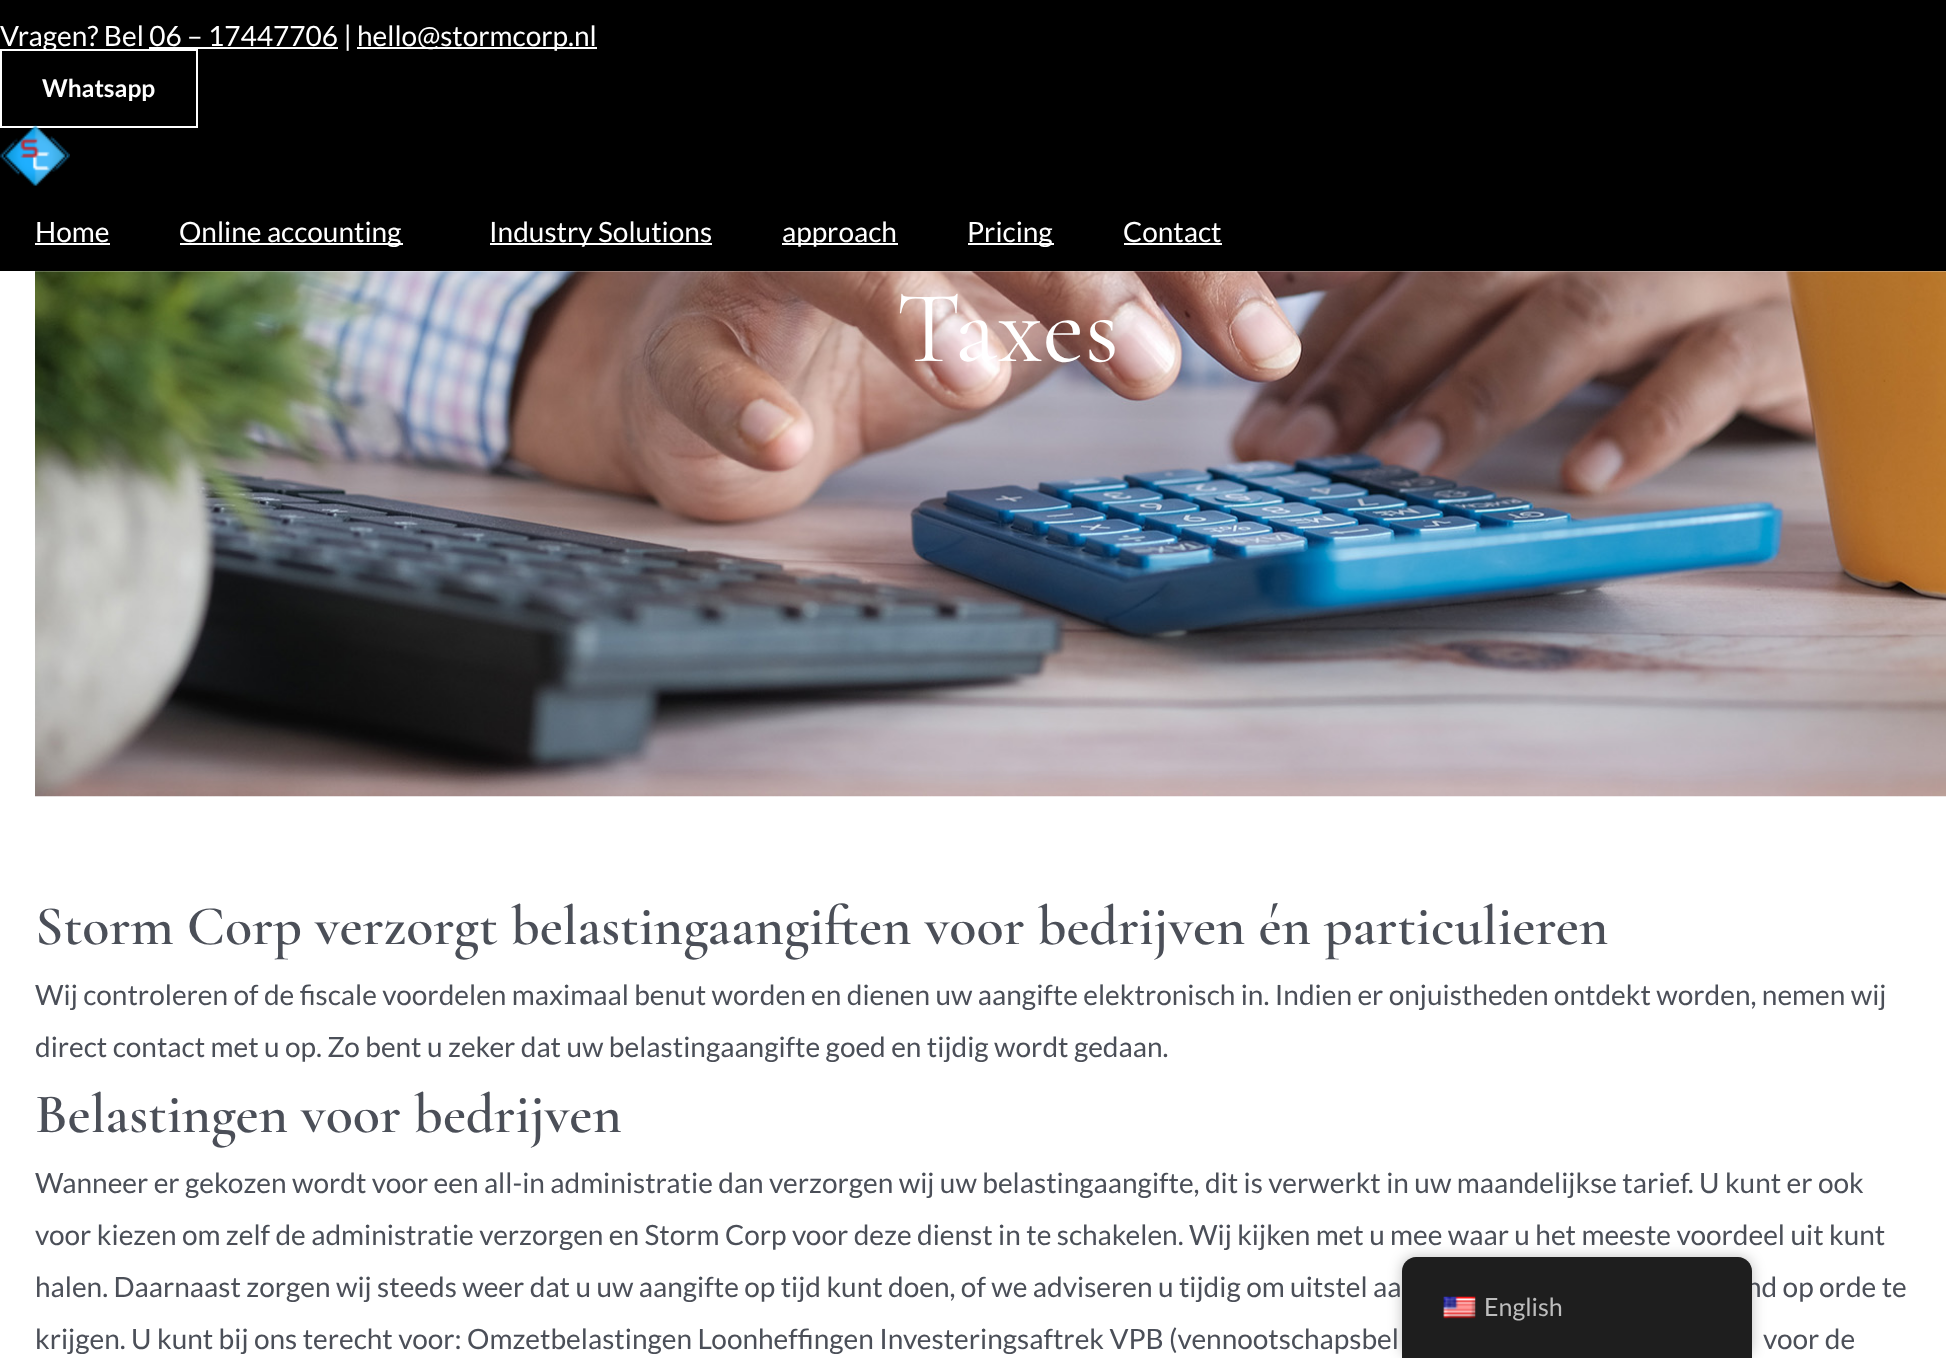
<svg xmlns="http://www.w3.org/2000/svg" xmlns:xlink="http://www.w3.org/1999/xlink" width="1946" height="1358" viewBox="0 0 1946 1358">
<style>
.cls-1{font:28px Lato;fill:#ffffff}
.cls-2{font:bold 24.5px Lato;fill:#ffffff}
.cls-3{font:103px Cormorant Garamond;fill:#ffffff}
.cls-4{font:600 56px Cormorant Garamond;fill:#4b4f58}
.cls-5{font:28px Lato;fill:#4b4f58}
.cls-6{font:25px Lato;fill:#bdbdbd}
</style>
<rect width="100%" height="100%" fill="#ffffff"/>
<rect fill="#000000" x="0" y="0" width="1946" height="271"/>
<rect fill="#ffffff" x="357" y="47" width="240" height="2"/>
<rect fill="#ffffff" x="149" y="47" width="189" height="2"/>
<rect fill="none" stroke="#ffffff" stroke-width="2" x="1" y="50" width="196" height="77"/>
<image xlink:href="image0.png" x="0" y="125" width="70" height="61"/>
<rect fill="#ffffff" x="35" y="243" width="75" height="2"/>
<rect fill="#ffffff" x="180" y="243" width="223" height="2"/>
<rect fill="#ffffff" x="490" y="243" width="222" height="2"/>
<rect fill="#ffffff" x="782" y="243" width="116" height="2"/>
<rect fill="#ffffff" x="968" y="243" width="86" height="2"/>
<rect fill="#ffffff" x="1124" y="243" width="98" height="2"/>
<image xlink:href="image1.png" x="35" y="271" width="1911" height="526"/>
<rect fill="#000000" fill-opacity="0.25" filter="blur(7px)" x="1402" y="1257" width="350" height="101" rx="14"/>
<text class="cls-1" x="0" y="46">Vragen? Bel 06 – 17447706 |</text>
<text class="cls-1" x="357" y="46">hello@stormcorp.nl</text>
<text class="cls-2" x="42" y="97">Whatsapp</text>
<text class="cls-1" x="35" y="242">Home</text>
<text class="cls-1" x="179" y="242">Online accounting</text>
<text class="cls-1" x="489" y="242">Industry Solutions</text>
<text class="cls-1" x="782" y="242">approach</text>
<text class="cls-1" x="967" y="242">Pricing</text>
<text class="cls-1" x="1123" y="242">Contact</text>
<text class="cls-3" x="896" y="361">Taxes</text>
<text class="cls-4" x="35" y="944">Storm Corp verzorgt belastingaangiften voor bedrijven én particulieren</text>
<text class="cls-5"><tspan x="35" y="1005">Wij controleren of de fiscale voordelen maximaal benut worden en dienen uw aangifte elektronisch in. Indien er onjuistheden ontdekt worden, nemen wij</tspan><tspan x="35" y="1057">direct contact met u op. Zo bent u zeker dat uw belastingaangifte goed en tijdig wordt gedaan.</tspan></text>
<text class="cls-4" x="35" y="1132">Belastingen voor bedrijven</text>
<text class="cls-5"><tspan x="35" y="1193">Wanneer er gekozen wordt voor een all-in administratie dan verzorgen wij uw belastingaangifte, dit is verwerkt in uw maandelijkse tarief. U kunt er ook</tspan><tspan x="35" y="1245">voor kiezen om zelf de administratie verzorgen en Storm Corp voor deze dienst in te schakelen. Wij kijken met u mee waar u het meeste voordeel uit kunt</tspan><tspan x="35" y="1297">halen. Daarnaast zorgen wij steeds weer dat u uw aangifte op tijd kunt doen, of we adviseren u tijdig om uitstel aa</tspan></text>
<text class="cls-5" x="1746" y="1297">nd op orde te</text>
<text class="cls-5" x="35" y="1349">krijgen. U kunt bij ons terecht voor: Omzetbelastingen Loonheffingen Investeringsaftrek VPB (vennootschapsbel</text>
<text class="cls-5" x="1763" y="1349">voor de</text>
<path fill="#1e1e1e" d="M1416 1257H1738C1745.5 1257 1752 1263.5 1752 1271V1358H1402V1271C1402 1263.5 1408.5 1257 1416 1257Z"/>
<image xlink:href="image2.png" x="1443" y="1296" width="33" height="23"/>
<text class="cls-6" x="1484" y="1316">English</text>
</svg>
